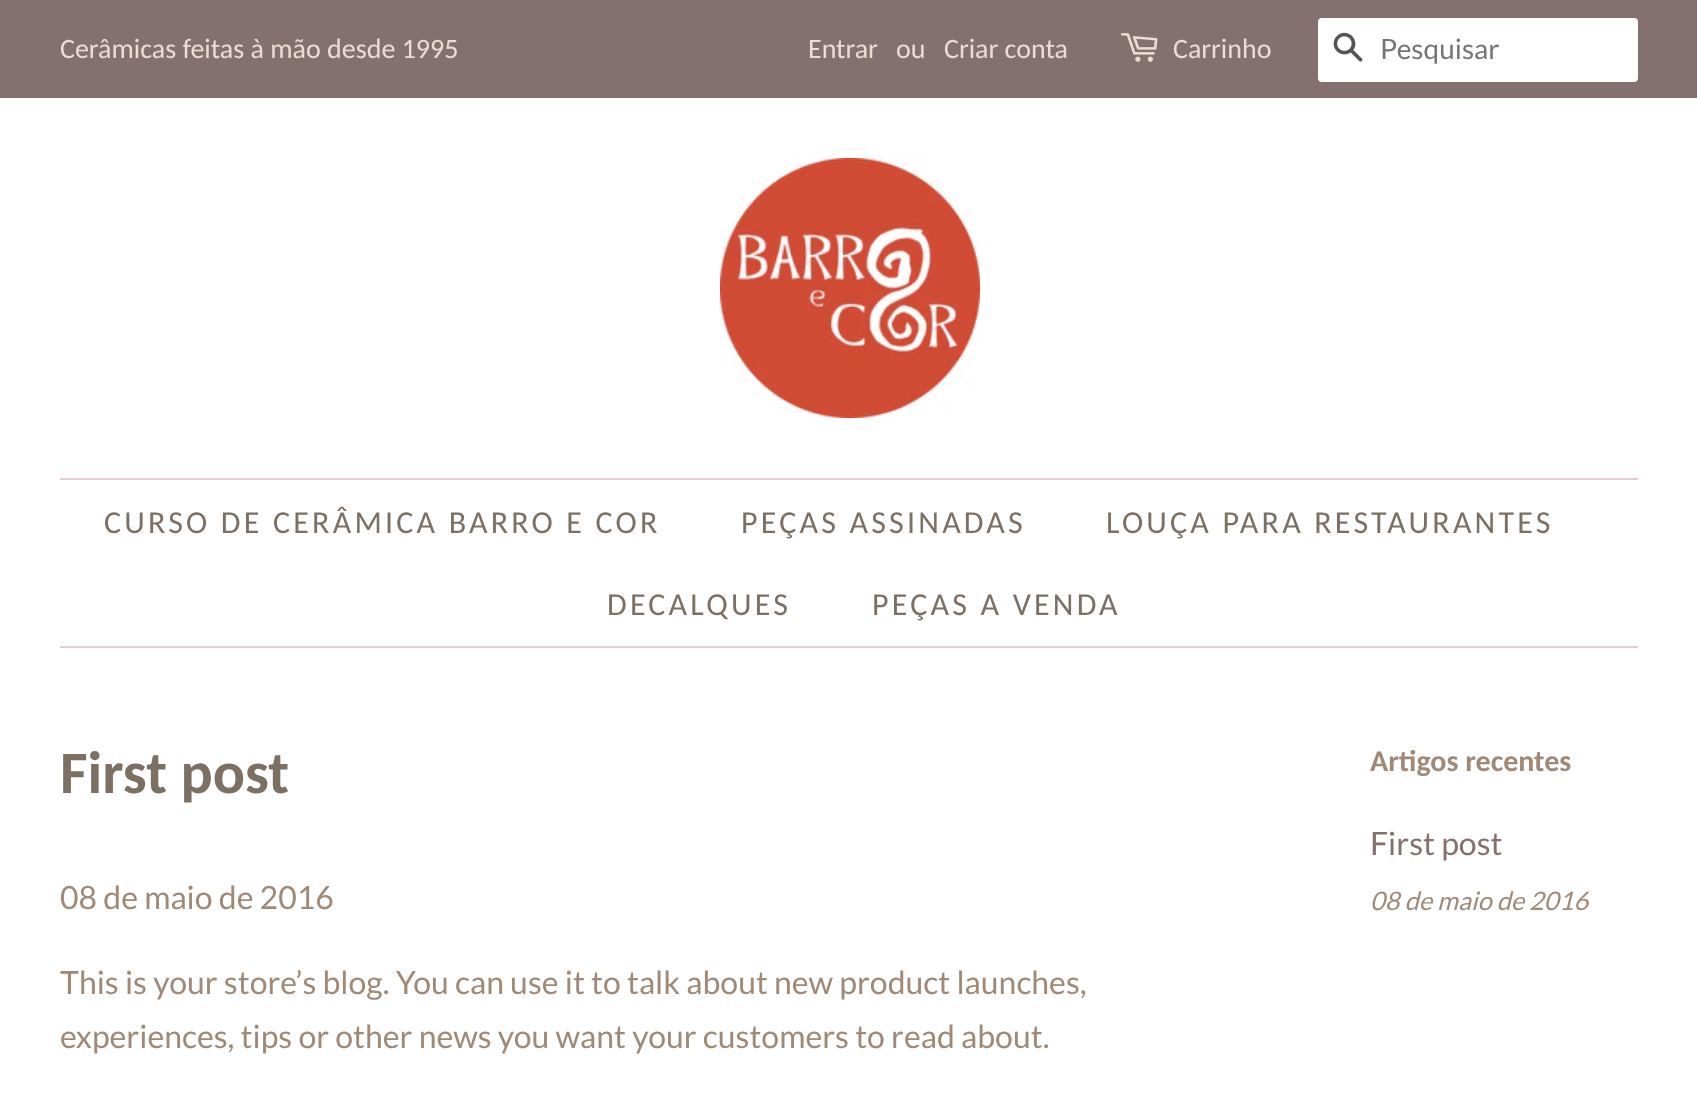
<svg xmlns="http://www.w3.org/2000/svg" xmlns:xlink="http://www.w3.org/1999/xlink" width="1697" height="1094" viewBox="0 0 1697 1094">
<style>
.cls-1{font:28px Carlito;fill:#eaddd4}
.cls-2{font:28px Lato;fill:#757575}
.cls-3{font:32px Carlito;letter-spacing:3.2px;fill:#7c6f64}
.cls-4{font:bold 60px Carlito;fill:#7c6f64}
.cls-5{font:32px Lato;fill:#a08976}
.cls-6{font:bold 30px Carlito;fill:#a08976}
.cls-7{font:32px Lato;fill:#84706f}
.cls-8{font:italic 25.5px Lato;fill:#a08976}
</style>
<rect width="100%" height="100%" fill="#ffffff"/>
<rect fill="#84706f" x="0" y="0" width="1697" height="98"/>
<image xlink:href="image0.png" x="1120" y="33" width="38" height="29"/>
<rect fill="#ffffff" x="1318" y="18" width="320" height="64" rx="4"/>
<image xlink:href="image1.png" x="1333" y="32" width="30" height="30"/>
<image xlink:href="image2.png" x="720" y="158" width="260" height="260"/>
<rect fill="#e5cad9" x="60" y="478" width="1578" height="2"/>
<rect fill="#e5cad9" x="60" y="646" width="1578" height="2"/>
<text class="cls-1" x="60" y="58">Cerâmicas feitas à mão desde 1995</text>
<text class="cls-1" x="808" y="58">Entrar</text>
<text class="cls-1" x="896" y="58">ou</text>
<text class="cls-1" x="944" y="58">Criar conta</text>
<text class="cls-1" x="1173" y="58">Carrinho</text>
<text class="cls-2" x="1380" y="59">Pesquisar</text>
<text class="cls-3" x="104" y="533">CURSO DE CERÂMICA BARRO E COR</text>
<text class="cls-3" x="741" y="533">PEÇAS ASSINADAS</text>
<text class="cls-3" x="1106" y="533">LOUÇA PARA RESTAURANTES</text>
<text class="cls-3" x="607" y="615">DECALQUES</text>
<text class="cls-3" x="872" y="615">PEÇAS A VENDA</text>
<text class="cls-4" x="60" y="793">First post</text>
<text class="cls-5" x="60" y="909">08 de maio de 2016</text>
<text class="cls-5"><tspan x="60" y="994">This is your store’s blog. You can use it to talk about new product launches,</tspan><tspan x="60" y="1048">experiences, tips or other news you want your customers to read about.</tspan></text>
<text class="cls-6" x="1370" y="771">Artigos recentes</text>
<text class="cls-7" x="1370" y="855">First post</text>
<text class="cls-8" x="1370" y="910">08 de maio de 2016</text>
</svg>
